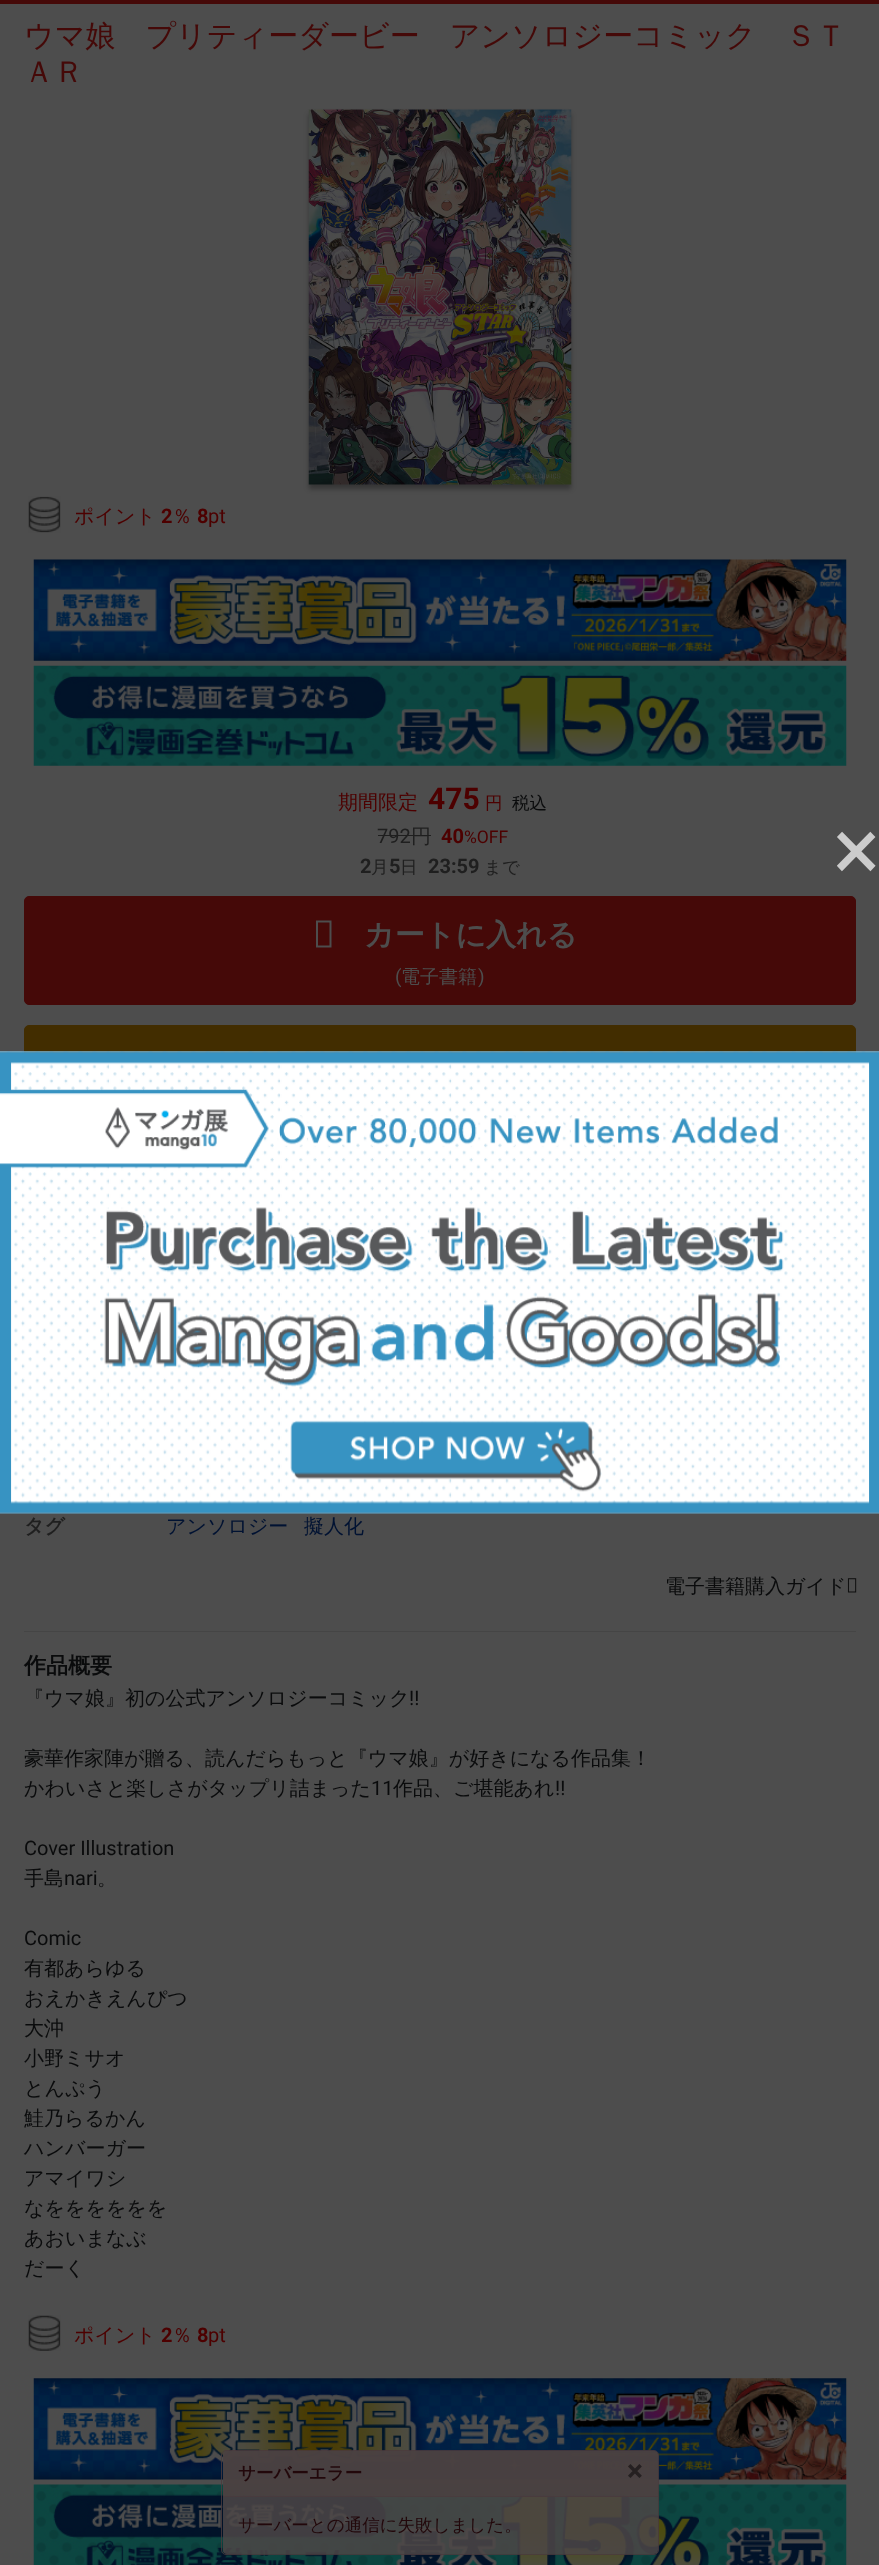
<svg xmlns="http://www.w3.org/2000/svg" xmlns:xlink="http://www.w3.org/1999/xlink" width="879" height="2565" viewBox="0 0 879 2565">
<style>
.cls-1{font:500 30px WenQuanYi Zen Hei;fill:#450908}
.cls-2{font:500 20px WenQuanYi Zen Hei;fill:#4d0000}
.cls-3{font:bold 20px Roboto;fill:#4d0000}
.cls-4{font:20px Roboto;fill:#4d0000}
.cls-5{font:bold 30px Roboto;fill:#4d0000}
.cls-6{font:500 17.5px WenQuanYi Zen Hei;fill:#4d0000}
.cls-7{font:500 17.5px WenQuanYi Zen Hei;fill:#0a0b0c}
.cls-8{font:20px Roboto;fill:#1f1f1f}
.cls-9{font:500 20px WenQuanYi Zen Hei;fill:#1f1f1f}
.cls-10{font:17.5px Roboto;fill:#4d0000}
.cls-11{font:bold 20px Roboto;fill:#1f1f1f}
.cls-12{font:500 17.5px WenQuanYi Zen Hei;fill:#1f1f1f}
.cls-13{font:bold 30px WenQuanYi Zen Hei;fill:#4d4d4d}
.cls-14{font:19px Roboto;fill:#4d4d4d}
.cls-15{font:500 19px WenQuanYi Zen Hei;fill:#4d4d4d}
.cls-16{font:bold 20px WenQuanYi Zen Hei;fill:#1f1f1f}
.cls-17{font:500 20px WenQuanYi Zen Hei;fill:#001232}
.cls-18{font:500 20px WenQuanYi Zen Hei;fill:#0a0b0c}
.cls-19{font:bold 22px WenQuanYi Zen Hei;fill:#0a0b0c}
.cls-20{font:20px Roboto;fill:#0a0b0c}
.cls-21{font:88px Roboto;fill:#cccccc}
.cls-22{font:bold 17.5px WenQuanYi Zen Hei;fill:#22080b}
.cls-23{font:bold 30px Roboto;fill:#252021}
.cls-24{font:500 17.5px WenQuanYi Zen Hei;fill:#22080b}
</style>
<rect width="100%" height="100%" fill="#4d4d4d"/>
<rect fill="#450908" x="0" y="0" width="879" height="4"/>
<rect fill="#000000" fill-opacity="0.3" filter="blur(2.5px)" x="309" y="114" width="262" height="375"/>
<image xlink:href="image0.png" x="308" y="109" width="264" height="376"/>
<image xlink:href="image1.png" x="28" y="496" width="33" height="37"/>
<image xlink:href="image2.png" x="33" y="559" width="814" height="102"/>
<image xlink:href="image3.png" x="33" y="665" width="814" height="101"/>
<rect fill="#1f1f1f" x="378" y="835" width="53" height="1"/>
<rect fill="#450908" stroke="#450908" x="24.5" y="896.5" width="831" height="108" rx="4.5"/>
<path fill="#4d4d4d" d="M316 947.5V920.5H331.5V947.5ZM318 945.5H329.5V922.5H318Z"/>
<rect fill="#422d00" stroke="#422d00" x="24.5" y="1025.5" width="831" height="62" rx="4.5"/>
<image xlink:href="image4.png" x="847" y="1578" width="10" height="15"/>
<rect fill="#454545" x="24" y="1631" width="832" height="1"/>
<image xlink:href="image5.png" x="28" y="2315" width="33" height="36"/>
<image xlink:href="image6.png" x="33" y="2378" width="814" height="102"/>
<image xlink:href="image7.png" x="33" y="2484" width="814" height="81"/>
<image xlink:href="image8.png" x="0" y="1051" width="879" height="463"/>
<rect fill="#4c4747" fill-opacity="0.85" x="223" y="2451" width="435" height="103" rx="4"/>
<rect fill="none" stroke="#4a3b3d" stroke-opacity="0.85" x="221.5" y="2450.5" width="437" height="104" rx="4.5"/>
<path fill="#4a4141" fill-opacity="0.85" d="M227 2451H654C656 2451 658 2453 658 2455V2496H223V2455C223 2453 225 2451 227 2451Z"/>
<rect fill="#4a3b3d" fill-opacity="0.85" x="223" y="2496" width="435" height="1"/>
<text class="cls-1"><tspan x="24" y="46">ウマ娘　プリティーダービー　アンソロジーコミック　ＳＴ</tspan><tspan x="24" y="82">ＡＲ</tspan></text>
<text class="cls-2" x="74" y="523">ポイント</text>
<text class="cls-3" x="161" y="523">2</text>
<text class="cls-2" x="172" y="523">％</text>
<text class="cls-3" x="197" y="523">8</text>
<text class="cls-4" x="208" y="523">pt</text>
<text class="cls-2" x="338" y="809">期間限定</text>
<text class="cls-5" x="428" y="809">475</text>
<text class="cls-6" x="485" y="809">円</text>
<text class="cls-7" x="512" y="809">税込</text>
<text class="cls-8" x="377" y="843">792</text>
<text class="cls-9" x="411" y="843">円</text>
<text class="cls-3" x="441" y="843">40</text>
<text class="cls-10" x="464" y="843">%OFF</text>
<text class="cls-11" x="360" y="873">2</text>
<text class="cls-12" x="371" y="873">月</text>
<text class="cls-11" x="389" y="873">5</text>
<text class="cls-12" x="400" y="873">日</text>
<text class="cls-11" x="428" y="873">23:59</text>
<text class="cls-12" x="484" y="873">まで</text>
<text class="cls-13" x="364" y="945">カートに入れる</text>
<text class="cls-14" x="395" y="983">(</text>
<text class="cls-15" x="401" y="983">電子書籍</text>
<text class="cls-14" x="478" y="983">)</text>
<text class="cls-16" x="24" y="1533">タグ</text>
<text class="cls-17" x="166" y="1533">アンソロジー</text>
<text class="cls-17" x="304" y="1533">擬人化</text>
<text class="cls-18" x="665" y="1593">電子書籍購入ガイド</text>
<text class="cls-19" x="24" y="1673">作品概要</text>
<text class="cls-18" x="24" y="1705">『ウマ娘』初の公式アンソロジーコミック</text>
<text class="cls-20" x="409" y="1705">!!</text>
<text class="cls-18"><tspan x="24" y="1765">豪華作家陣が贈る、読んだらもっと『ウマ娘』が好きになる作品集！</tspan><tspan x="24" y="1795">かわいさと楽しさがタップリ詰まった</tspan></text>
<text class="cls-20" x="371" y="1795">11</text>
<text class="cls-18" x="393" y="1795">作品、ご堪能あれ</text>
<text class="cls-20" x="555" y="1795">!!</text>
<text class="cls-20" x="24" y="1855">Cover Illustration</text>
<text class="cls-18" x="24" y="1885">手島</text>
<text class="cls-20" x="64" y="1885">nari</text>
<text class="cls-18" x="97" y="1885">。</text>
<text class="cls-20" x="24" y="1945">Comic</text>
<text class="cls-18"><tspan x="24" y="1975">有都あらゆる</tspan><tspan x="24" y="2005">おえかきえんぴつ</tspan><tspan x="24" y="2035">大沖</tspan><tspan x="24" y="2065">小野ミサオ</tspan><tspan x="24" y="2095">とんぷう</tspan><tspan x="24" y="2125">鮭乃らるかん</tspan><tspan x="24" y="2155">ハンバーガー</tspan><tspan x="24" y="2185">アマイワシ</tspan><tspan x="24" y="2215">なをををををを</tspan><tspan x="24" y="2245">あおいまなぶ</tspan><tspan x="24" y="2275">だーく</tspan></text>
<text class="cls-2" x="74" y="2342">ポイント</text>
<text class="cls-3" x="161" y="2342">2</text>
<text class="cls-2" x="172" y="2342">％</text>
<text class="cls-3" x="197" y="2342">8</text>
<text class="cls-4" x="208" y="2342">pt</text>
<text class="cls-21" x="833" y="880">×</text>
<text class="cls-22" x="238" y="2479">サーバーエラー</text>
<text class="cls-23" x="627" y="2481">×</text>
<text class="cls-24" x="238" y="2531">サーバーとの通信に失敗しました。</text>
</svg>
